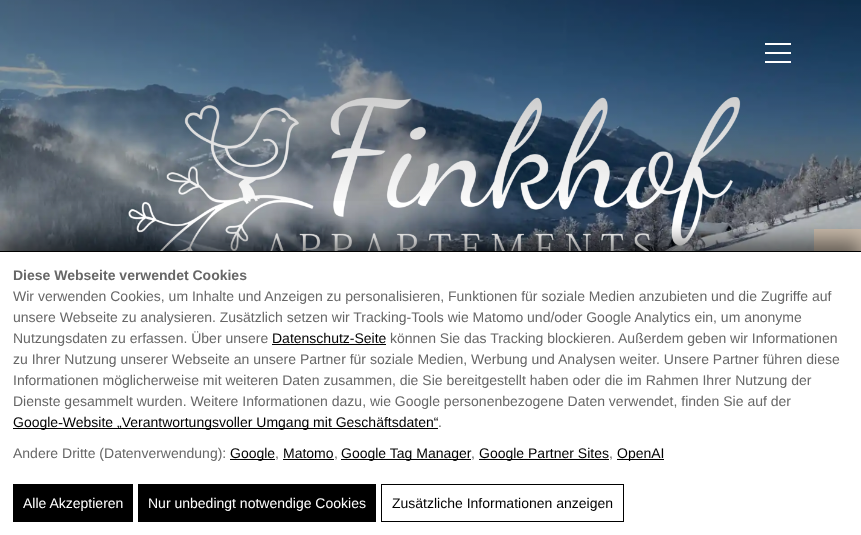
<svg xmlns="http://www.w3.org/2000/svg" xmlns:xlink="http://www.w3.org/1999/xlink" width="861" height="535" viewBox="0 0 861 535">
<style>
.cls-1{font:bold 14px Liberation Sans;fill:#676767}
.cls-2{font:14px Liberation Sans;fill:#676767}
.cls-3{font:14px Liberation Sans;fill:#000000}
.cls-4{font:14px Liberation Sans;fill:#ffffff}
</style>
<defs>
<linearGradient id="g1" gradientUnits="userSpaceOnUse" x1="431" y1="0" x2="431" y2="214"><stop offset="0" stop-color="#000000" stop-opacity="0.35"/><stop offset="1" stop-color="#000000" stop-opacity="0"/></linearGradient>
</defs>
<rect width="100%" height="100%" fill="#ffffff"/>
<image xlink:href="image0.png" x="0" y="0" width="861" height="251"/>
<image xlink:href="image1.png" x="128" y="97" width="613" height="154"/>
<rect fill="url(#g1)" x="0" y="0" width="861" height="201"/>
<rect fill="#c7b9a9" x="814" y="229" width="47" height="22"/>
<rect fill="#ffffff" x="765" y="52" width="26" height="2"/>
<rect fill="#ffffff" x="765" y="43" width="26" height="2"/>
<rect fill="#ffffff" x="765" y="61" width="26" height="2"/>
<rect fill="#000000" fill-opacity="0.5" filter="blur(10px)" x="0" y="241" width="861" height="284"/>
<rect fill="#ffffff" x="0" y="252" width="861" height="283"/>
<rect fill="#000000" x="0" y="251" width="861" height="1"/>
<rect fill="#000000" x="272" y="344" width="114" height="1"/>
<rect fill="#000000" x="13" y="428" width="425" height="1"/>
<rect fill="#000000" x="230" y="459" width="45" height="1"/>
<rect fill="#000000" x="283" y="459" width="51" height="1"/>
<rect fill="#000000" x="341" y="459" width="130" height="1"/>
<rect fill="#000000" x="479" y="459" width="130" height="1"/>
<rect fill="#000000" x="617" y="459" width="47" height="1"/>
<rect fill="#000000" x="13" y="484" width="120" height="38"/>
<rect fill="#000000" x="138" y="484" width="238" height="38"/>
<rect fill="none" stroke="#000000" x="381.5" y="484.5" width="242" height="37"/>
<text class="cls-1" x="13" y="280">Diese Webseite verwendet Cookies</text>
<text class="cls-2"><tspan x="13" y="301">Wir verwenden Cookies, um Inhalte und Anzeigen zu personalisieren, Funktionen für soziale Medien anzubieten und die Zugriffe auf</tspan><tspan x="13" y="322">unsere Webseite zu analysieren. Zusätzlich setzen wir Tracking-Tools wie Matomo und/oder Google Analytics ein, um anonyme</tspan><tspan x="13" y="343">Nutzungsdaten zu erfassen. Über unsere</tspan></text>
<text class="cls-3" x="272" y="343">Datenschutz-Seite</text>
<text class="cls-2" x="390" y="343">können Sie das Tracking blockieren. Außerdem geben wir Informationen</text>
<text class="cls-2"><tspan x="13" y="364">zu Ihrer Nutzung unserer Webseite an unsere Partner für soziale Medien, Werbung und Analysen weiter. Unsere Partner führen diese</tspan><tspan x="13" y="385">Informationen möglicherweise mit weiteren Daten zusammen, die Sie bereitgestellt haben oder die im Rahmen Ihrer Nutzung der</tspan><tspan x="13" y="406">Dienste gesammelt wurden. Weitere Informationen dazu, wie Google personenbezogene Daten verwendet, finden Sie auf der</tspan></text>
<text class="cls-3" x="13" y="427">Google‑Website „Verantwortungsvoller Umgang mit Geschäftsdaten“</text>
<text class="cls-2" x="438" y="427">.</text>
<text class="cls-2" x="13" y="458">Andere Dritte (Datenverwendung):</text>
<text class="cls-3" x="230" y="458">Google</text>
<text class="cls-2" x="275" y="458">,</text>
<text class="cls-3" x="283" y="458">Matomo</text>
<text class="cls-2" x="334" y="458">,</text>
<text class="cls-3" x="341" y="458">Google Tag Manager</text>
<text class="cls-2" x="471" y="458">,</text>
<text class="cls-3" x="479" y="458">Google Partner Sites</text>
<text class="cls-2" x="609" y="458">,</text>
<text class="cls-3" x="617" y="458">OpenAI</text>
<text class="cls-4" x="23" y="508">Alle Akzeptieren</text>
<text class="cls-4" x="148" y="508">Nur unbedingt notwendige Cookies</text>
<text class="cls-3" x="392" y="508">Zusätzliche Informationen anzeigen</text>
</svg>
